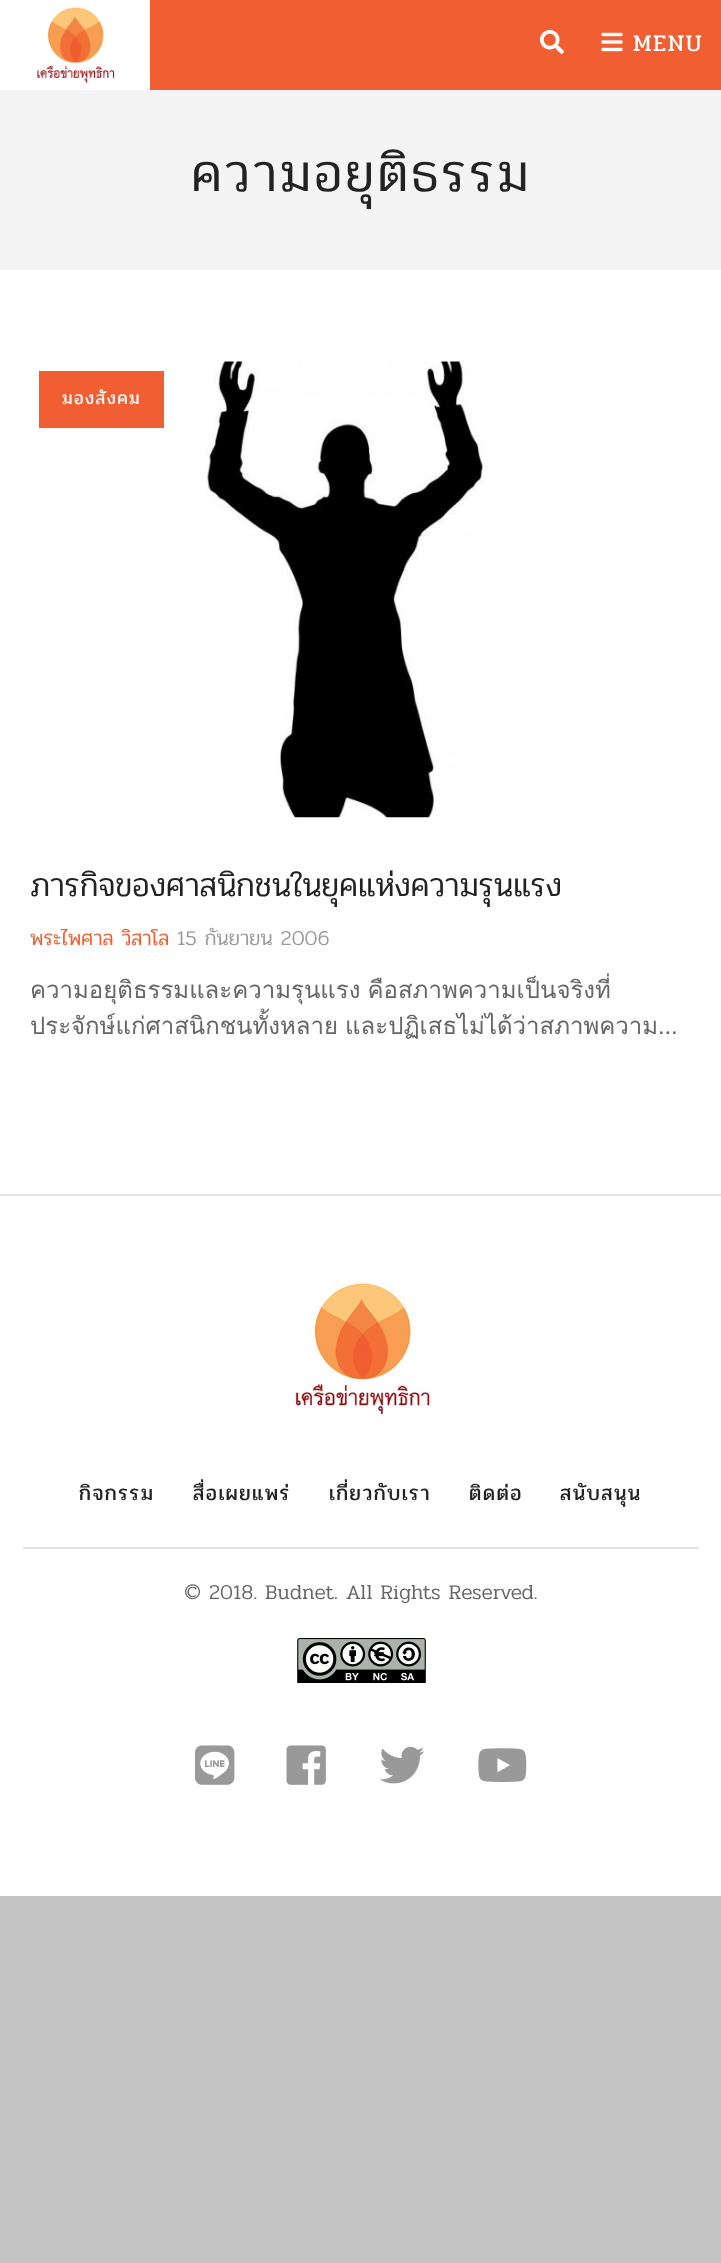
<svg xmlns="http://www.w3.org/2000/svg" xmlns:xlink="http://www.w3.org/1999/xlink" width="721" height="2263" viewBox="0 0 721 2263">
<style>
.cls-1{font:24px Pridi;letter-spacing:1.5px;fill:#ffffff}
.cls-2{font:300 54px Pridi;letter-spacing:3px;fill:#222222}
.cls-3{font:18px Pridi;letter-spacing:1.5px;fill:#ffffff}
.cls-4{font:300 33px Pridi;fill:#222222}
.cls-5{font:300 21px Pridi;fill:#f05e31}
.cls-6{font:300 21px Pridi;fill:#999999}
.cls-7{font:24px Loma;fill:#666666}
.cls-8{font:21px Pridi;letter-spacing:1.5px;fill:#222222}
.cls-9{font:300 21px Pridi;fill:#666666}
</style>
<rect width="100%" height="100%" fill="#c5c5c5"/>
<rect fill="#f05e32" x="150" y="0" width="571" height="90"/>
<rect fill="#ffffff" x="0" y="0" width="150" height="90"/>
<image xlink:href="image0.png" x="37" y="7" width="79" height="77"/>
<image xlink:href="image1.png" x="540" y="30" width="24" height="24"/>
<image xlink:href="image2.png" x="601" y="32" width="22" height="20"/>
<rect fill="#f4f4f4" x="0" y="90" width="721" height="180"/>
<rect fill="#ffffff" x="0" y="270" width="721" height="924"/>
<rect fill="#f05e31" x="39" y="371" width="125" height="57"/>
<image xlink:href="image3.png" x="206" y="361" width="278" height="457"/>
<rect fill="#ffffff" x="0" y="1196" width="721" height="700"/>
<rect fill="#e5e5e5" x="0" y="1194" width="721" height="2"/>
<image xlink:href="image4.png" x="295" y="1283" width="138" height="132"/>
<rect fill="#e5e5e5" x="23" y="1547" width="676" height="2"/>
<image xlink:href="image5.png" x="297" y="1638" width="129" height="45"/>
<image xlink:href="image6.png" x="195" y="1745" width="40" height="40"/>
<image xlink:href="image7.png" x="286" y="1745" width="40" height="40"/>
<image xlink:href="image8.png" x="379" y="1746" width="46" height="38"/>
<image xlink:href="image9.png" x="478" y="1748" width="49" height="34"/>
<text class="cls-1" x="633" y="51">MENU</text>
<text class="cls-2" x="191" y="191">ความอยุติธรรม</text>
<text class="cls-3" x="62" y="404">มองสังคม</text>
<text class="cls-4" x="30" y="896">ภารกิจของศาสนิกชนในยุคแห่งความรุนแรง</text>
<text class="cls-5" x="30" y="945">พระไพศาล วิสาโล</text>
<text class="cls-6" x="177" y="945">15 กันยายน 2006</text>
<text class="cls-7"><tspan x="30" y="998" word-spacing="-1">ความอยุติธรรมและความรุนแรง คือสภาพความเป็นจริงที่</tspan><tspan x="30" y="1034" word-spacing="-1">ประจักษ์แก่ศาสนิกชนทั้งหลาย และปฏิเสธไม่ได้ว่าสภาพความ…</tspan></text>
<text class="cls-8" x="79" y="1500">กิจกรรม</text>
<text class="cls-8" x="193" y="1500">สื่อเผยแพร่</text>
<text class="cls-8" x="329" y="1500">เกี่ยวกับเรา</text>
<text class="cls-8" x="469" y="1500">ติดต่อ</text>
<text class="cls-8" x="560" y="1500">สนับสนุน</text>
<text class="cls-9" x="184" y="1599">© 2018. Budnet. All Rights Reserved.</text>
</svg>
